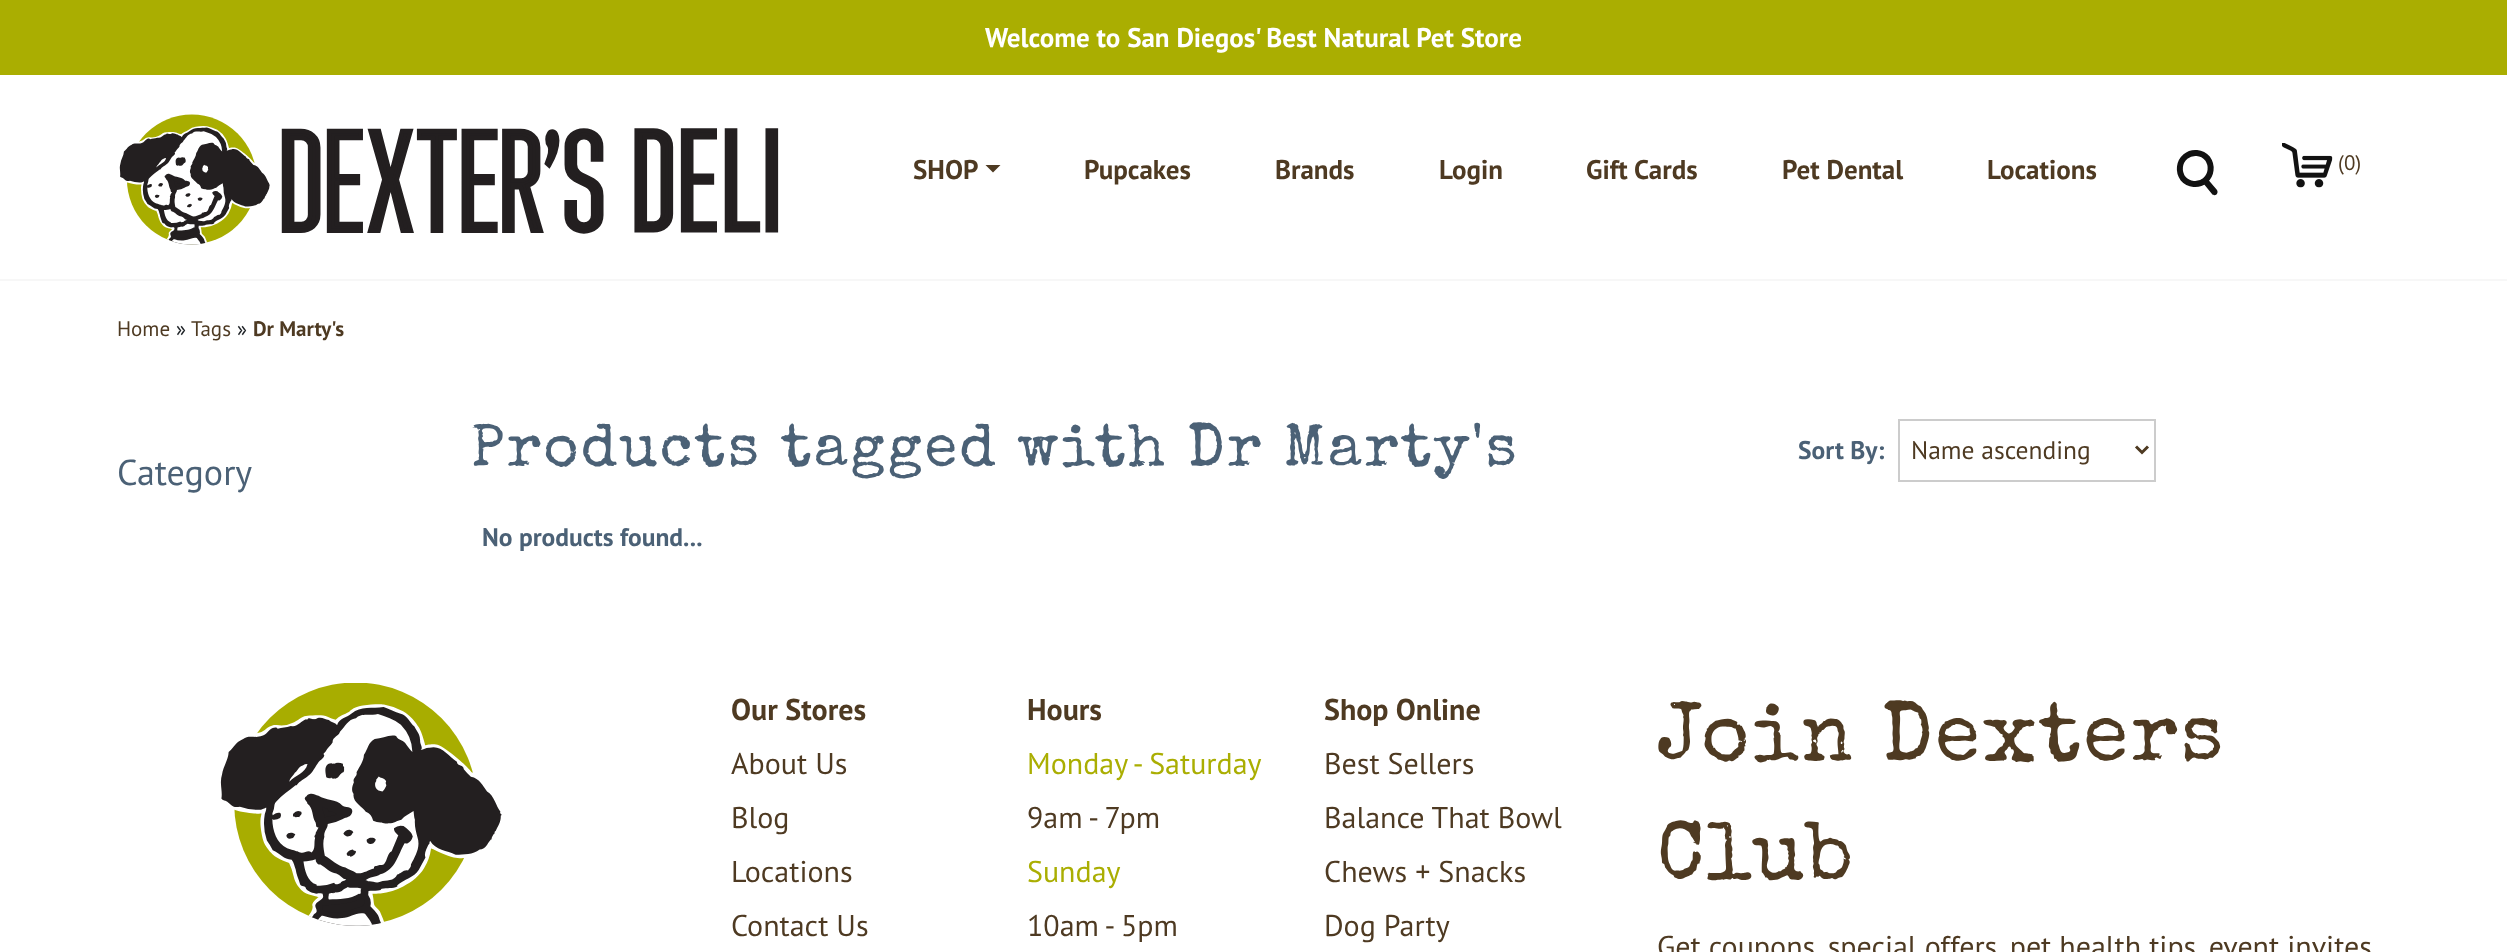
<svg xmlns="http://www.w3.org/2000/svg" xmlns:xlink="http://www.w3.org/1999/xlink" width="2507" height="952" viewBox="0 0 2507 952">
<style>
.cls-1{font:bold 27px PT Sans;fill:#ffffff}
.cls-2{font:bold 27px PT Sans;fill:#4e3a22}
.cls-3{font:21px PT Sans;fill:#4e3a22}
.cls-4{font:21px PT Sans;fill:#212529}
.cls-5{font:bold 21px PT Sans;fill:#4e3a22}
.cls-6{font:36px PT Sans;fill:#4b6176}
.cls-7{font:60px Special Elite;letter-spacing:2.25px;fill:#4b6176}
.cls-8{font:bold 25.5px PT Sans;fill:#4b6176}
.cls-9{font:25.5px PT Sans;fill:#4e3a22}
.cls-10{font:bold 30px PT Sans;fill:#4e3a22}
.cls-11{font:30px PT Sans;fill:#4e3a22}
.cls-12{font:30px PT Sans;fill:#aaae02}
.cls-13{font:82.5px Special Elite;letter-spacing:2.25px;fill:#4e3a22}
</style>
<rect width="100%" height="100%" fill="#ffffff"/>
<rect fill="#f7f7f7" x="0" y="279" width="2507" height="2"/>
<rect fill="#aaae01" x="0" y="0" width="2507" height="75"/>
<image xlink:href="image0.png" x="119" y="114" width="660" height="131"/>
<path fill="#4e3a22" d="M985.5 165H1000.5L993 172.5Z"/>
<path fill="none" stroke="#121212" stroke-width="6" d="M2185.5 156.5C2192 151 2202 152 2207.5 158.5C2212.5 165.5 2211.5 175 2205 180.5C2198.5 186 2188.5 185 2183 178.5C2178 171.5 2179 162 2185.5 156.5Z"/>
<path fill="#121212" d="M2201 180.5L2205.5 176.5L2217 190C2218 191.5 2217.5 193.5 2216.5 194.5C2215 195.5 2213 195.5 2212 194Z"/>
<image xlink:href="image1.png" x="2282" y="143" width="51" height="45"/>
<rect fill="none" stroke="#cccccc" stroke-width="2" x="1899" y="420" width="256" height="61"/>
<path fill="none" stroke="#4e3a22" stroke-width="3" d="M2136 446.5L2142 452.5L2148 446.5"/>
<image xlink:href="image2.png" x="220" y="683" width="282" height="243"/>
<text class="cls-1" x="985" y="47">Welcome to San Diegos' Best Natural Pet Store</text>
<text class="cls-2" x="913" y="179">SHOP</text>
<text class="cls-2" x="1084" y="179">Pupcakes</text>
<text class="cls-2" x="1275" y="179">Brands</text>
<text class="cls-2" x="1439" y="179">Login</text>
<text class="cls-2" x="1586" y="179">Gift Cards</text>
<text class="cls-2" x="1782" y="179">Pet Dental</text>
<text class="cls-2" x="1987" y="179">Locations</text>
<text class="cls-3" x="2338" y="170">(0)</text>
<text class="cls-3" x="117" y="336">Home</text>
<text class="cls-4" x="176" y="336">»</text>
<text class="cls-3" x="191" y="336">Tags</text>
<text class="cls-4" x="237" y="336">»</text>
<text class="cls-5" x="253" y="336">Dr Marty's</text>
<text class="cls-6" x="117" y="485">Category</text>
<text class="cls-7" x="471" y="465">Products tagged with Dr Marty's</text>
<text class="cls-8" x="1798" y="459">Sort By:</text>
<text class="cls-9" x="1911" y="459">Name ascending</text>
<text class="cls-8" x="482" y="546">No products found...</text>
<text class="cls-10" x="731" y="720">Our Stores</text>
<text class="cls-11"><tspan x="731" y="774">About Us</tspan><tspan x="731" y="828">Blog</tspan><tspan x="731" y="882">Locations</tspan><tspan x="731" y="936">Contact Us</tspan></text>
<text class="cls-10" x="1027" y="720">Hours</text>
<text class="cls-12" x="1027" y="774">Monday - Saturday</text>
<text class="cls-11" x="1027" y="828">9am - 7pm</text>
<text class="cls-12" x="1027" y="882">Sunday</text>
<text class="cls-11" x="1027" y="936">10am - 5pm</text>
<text class="cls-10" x="1324" y="720">Shop Online</text>
<text class="cls-11"><tspan x="1324" y="774">Best Sellers</tspan><tspan x="1324" y="828">Balance That Bowl</tspan><tspan x="1324" y="882">Chews + Snacks</tspan><tspan x="1324" y="936">Dog Party</tspan></text>
<text class="cls-13"><tspan x="1657" y="759">Join Dexters</tspan><tspan x="1657" y="878">Club</tspan></text>
<text class="cls-11" x="1657" y="957">Get coupons, special offers, pet health tips, event invites</text>
</svg>
